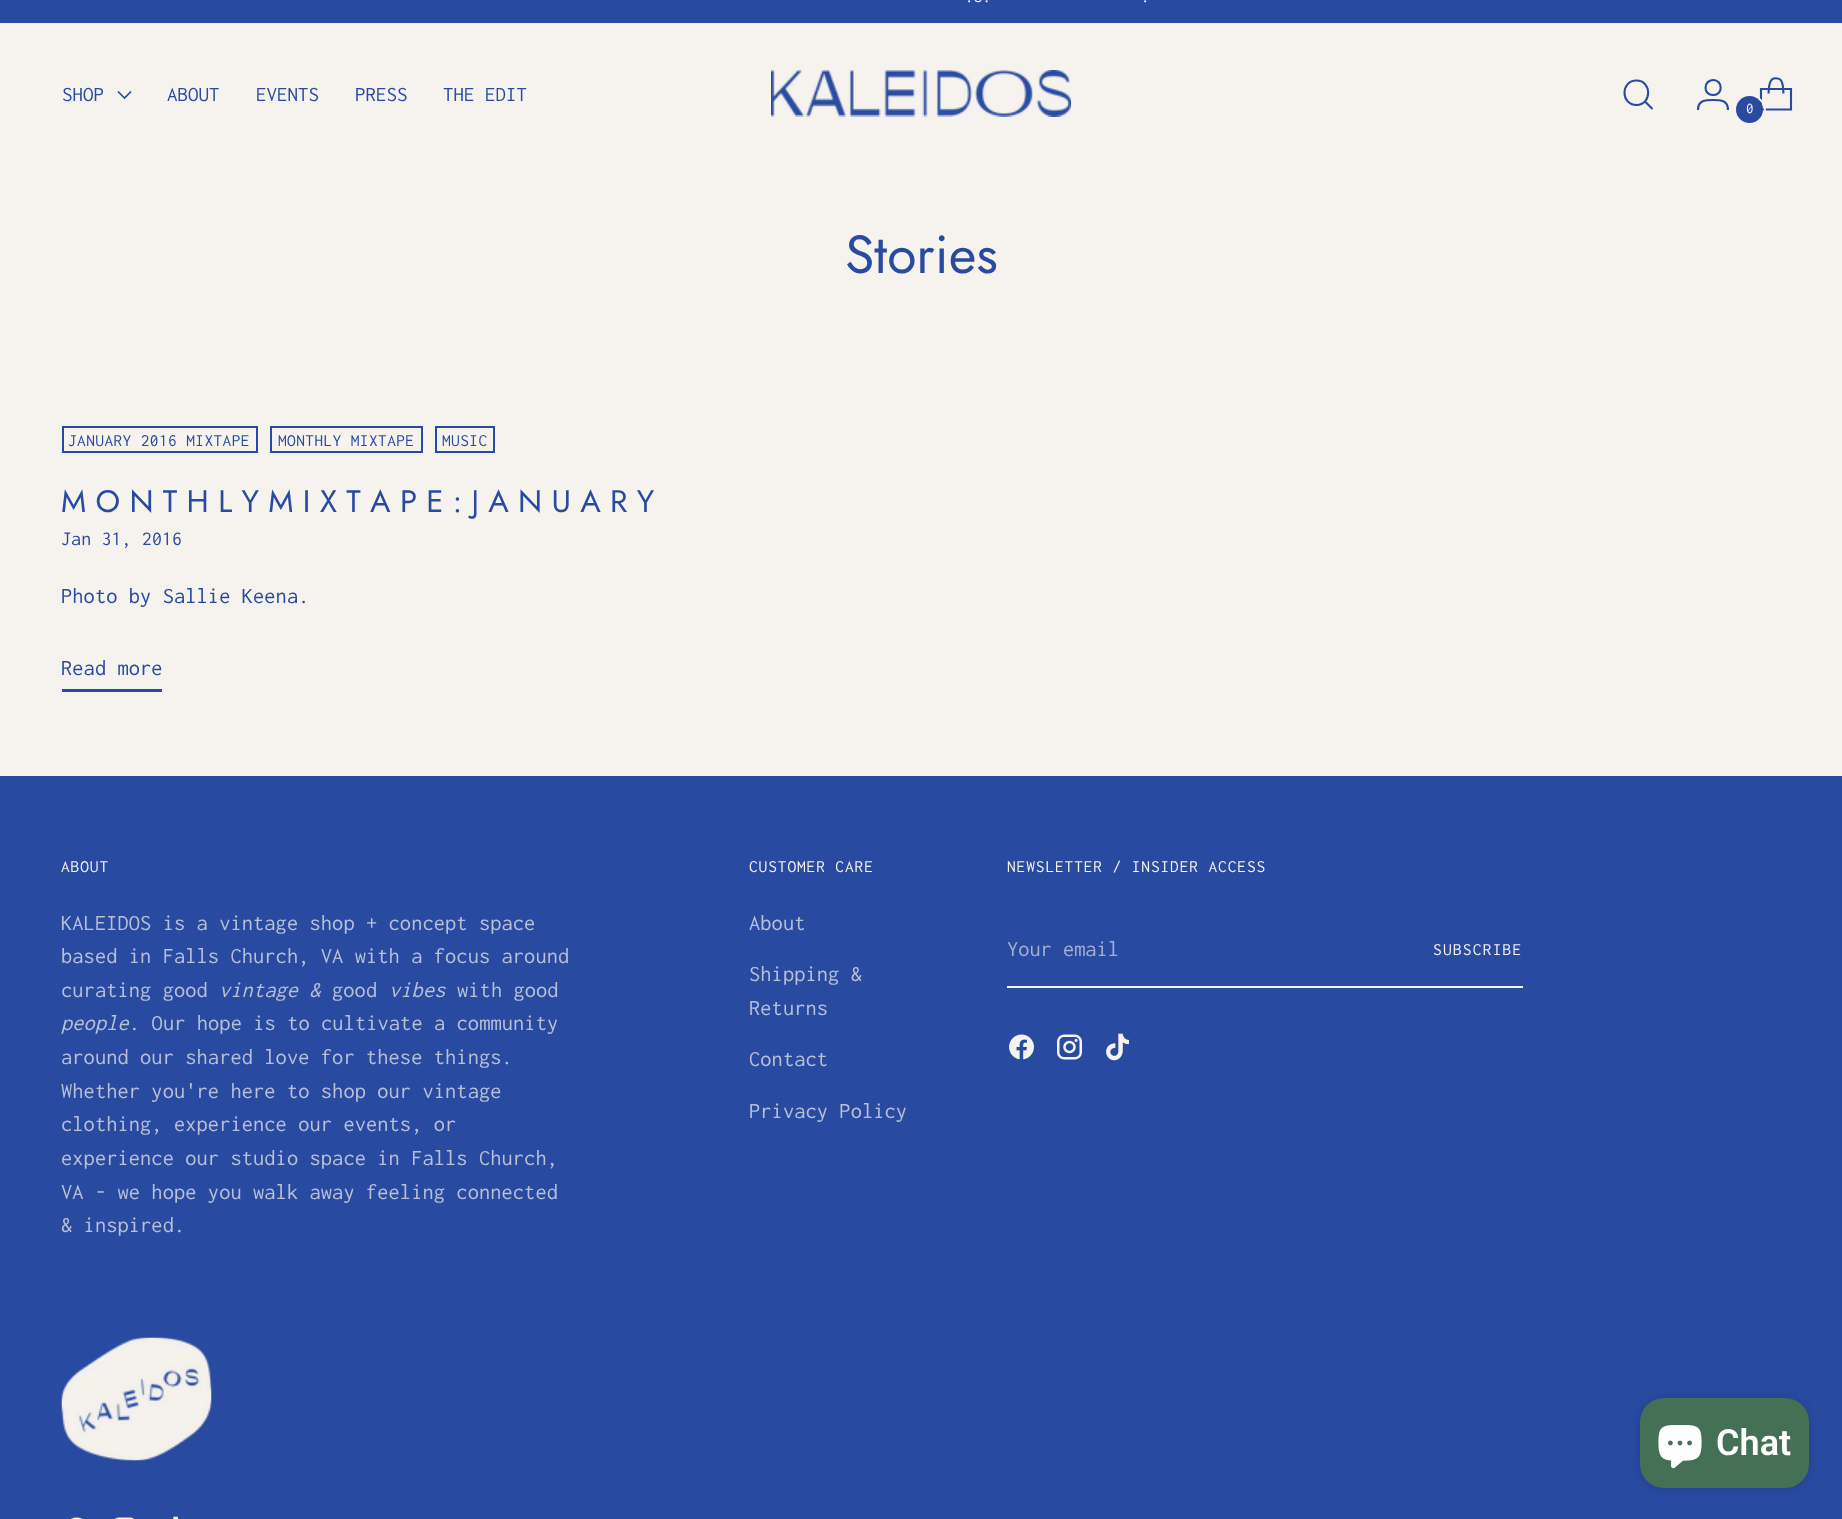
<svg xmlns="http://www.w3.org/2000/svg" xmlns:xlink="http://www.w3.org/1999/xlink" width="1842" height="1519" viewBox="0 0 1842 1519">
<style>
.cls-1{font:17.4px Inconsolata;fill:#f6f2ed}
.cls-2{font:21px Inconsolata;fill:#294aa1}
.cls-3{font:15px Inconsolata;letter-spacing:0.1px;fill:#f6f2ed}
.cls-4{font:53.5px Jost;fill:#294aa1}
.cls-5{font:17.4px Inconsolata;letter-spacing:0.4px;fill:#294aa1}
.cls-6{font:31.1px Jost;fill:#294aa1}
.cls-7{font:20px Inconsolata;letter-spacing:0.1px;fill:#294aa1}
.cls-8{font:22.4px Inconsolata;letter-spacing:0.1px;fill:#294aa1}
.cls-9{font:17.4px Inconsolata;letter-spacing:0.9px;fill:#f6f2ed}
.cls-10{font:22.4px Inconsolata;letter-spacing:0.1px;fill:#b9c0d6}
.cls-11{font:italic 22.4px Inconsolata;letter-spacing:0.1px;fill:#b9c0d6}
.cls-12{font:22.4px Inconsolata;fill:#a4afcf}
.cls-13{font:17.4px Inconsolata;letter-spacing:1.25px;fill:#f6f2ed}
.cls-14{font:600 36px Roboto;fill:#ffffff}
</style>
<rect width="100%" height="100%" fill="#f6f2ed"/>
<rect fill="#294aa1" x="0" y="0" width="1842" height="23"/>
<path fill="none" stroke="#294aa1" stroke-width="1.7" d="M118 91.5L124.5 98L131 91.5"/>
<image xlink:href="image0.png" x="771" y="70" width="300" height="47"/>
<path fill="none" stroke="#294aa1" stroke-width="2.1" stroke-linecap="round" d="M1636.5 105C1652 105 1652 80.5 1636.5 80.5C1620.5 80.5 1620.5 105 1636.5 105Z"/>
<path fill="none" stroke="#294aa1" stroke-width="2.1" d="M1645 101.5L1652.5 109"/>
<path fill="none" stroke="#294aa1" stroke-width="2.1" d="M1713 95C1723.5 95.5 1723 79.5 1713 80C1703 80.5 1703 95 1713 95ZM1698 110C1698 100 1705.5 100 1713 100C1720.5 100 1728 100 1728 110"/>
<path fill="none" stroke="#294aa1" stroke-width="2.1" stroke-linejoin="bevel" d="M1783.5 93.5C1783 90 1783.5 86 1782 82.5C1781.5 80.5 1779.5 78.5 1777.5 78.5C1768.5 76.5 1769 88 1768.5 93.5"/>
<path fill="none" stroke="#294aa1" stroke-width="2.1" d="M1791 109.5V89H1761V109.5Z"/>
<rect fill="none" stroke="#f6f2ed" stroke-width="2" x="1735" y="96" width="30" height="29" rx="14.5"/>
<circle fill="#294aa1" cx="1749.5" cy="109.5" r="13.5"/>
<rect fill="none" stroke="#294aa1" stroke-width="2" x="63" y="427" width="194" height="25"/>
<rect fill="none" stroke="#294aa1" stroke-width="2" x="271" y="427" width="151" height="25"/>
<rect fill="none" stroke="#294aa1" stroke-width="2" x="436" y="427" width="58" height="25"/>
<rect fill="#294aa1" x="62" y="689" width="100" height="3"/>
<rect fill="#294aa1" x="0" y="776" width="1842" height="743"/>
<rect fill="#f6f2ed" x="1007" y="986" width="516" height="2"/>
<image xlink:href="image1.png" x="1009" y="1034" width="25" height="26"/>
<image xlink:href="image2.png" x="1057" y="1034" width="25" height="26"/>
<image xlink:href="image3.png" x="1106" y="1033" width="23" height="28"/>
<image xlink:href="image4.png" x="61" y="1337" width="151" height="124"/>
<image xlink:href="image5.png" x="70" y="1517" width="13" height="2"/>
<image xlink:href="image6.png" x="115" y="1517" width="19" height="2"/>
<image xlink:href="image7.png" x="173" y="1516" width="6" height="3"/>
<rect fill="#000000" fill-opacity="0.15" filter="blur(4px)" x="1640" y="1398" width="169" height="90" rx="24"/>
<rect fill="#447156" x="1640" y="1398" width="169" height="90" rx="24"/>
<image xlink:href="image8.png" x="1658" y="1425" width="44" height="44"/>
<text class="cls-1" x="965" y="2">.S.</text>
<text class="cls-1" x="1141" y="2">.</text>
<text class="cls-2" x="62" y="101">SHOP</text>
<text class="cls-2" x="167" y="101">ABOUT</text>
<text class="cls-2" x="256" y="101">EVENTS</text>
<text class="cls-2" x="355" y="101">PRESS</text>
<text class="cls-2" x="443" y="101">THE EDIT</text>
<text class="cls-3" x="1746" y="113">0</text>
<text class="cls-4" x="845" y="273">Stories</text>
<text class="cls-5" x="68" y="446">JANUARY 2016 MIXTAPE</text>
<text class="cls-5" x="278" y="446">MONTHLY MIXTAPE</text>
<text class="cls-5" x="442" y="446">MUSIC</text>
<text class="cls-6" x="61" y="512">M O N T H L Y M I X T A P E : J A N U A R Y</text>
<text class="cls-7" x="61" y="545">Jan 31, 2016</text>
<text class="cls-8" x="61" y="603">Photo by Sallie Keena.</text>
<text class="cls-8" x="61" y="675">Read more</text>
<text class="cls-9" x="61" y="872">ABOUT</text>
<text class="cls-10"><tspan x="61" y="930">KALEIDOS is a vintage shop + concept space</tspan><tspan x="61" y="963">based in Falls Church, VA with a focus around</tspan><tspan x="61" y="997">curating good</tspan></text>
<text class="cls-11" x="219" y="997">vintage &amp;</text>
<text class="cls-10" x="332" y="997">good</text>
<text class="cls-11" x="389" y="997">vibes</text>
<text class="cls-10" x="457" y="997">with good</text>
<text class="cls-11" x="61" y="1030">people</text>
<text class="cls-10" x="129" y="1030">. Our hope is to cultivate a community</text>
<text class="cls-10"><tspan x="61" y="1064">around our shared love for these things.</tspan><tspan x="61" y="1098">Whether you're here to shop our vintage</tspan><tspan x="61" y="1131">clothing, experience our events, or</tspan><tspan x="61" y="1165">experience our studio space in Falls Church,</tspan><tspan x="61" y="1199">VA - we hope you walk away feeling connected</tspan><tspan x="61" y="1232">&amp; inspired.</tspan></text>
<text class="cls-9" x="749" y="872">CUSTOMER CARE</text>
<text class="cls-10" x="749" y="930">About</text>
<text class="cls-10"><tspan x="749" y="981">Shipping &amp;</tspan><tspan x="749" y="1015">Returns</tspan></text>
<text class="cls-10" x="749" y="1066">Contact</text>
<text class="cls-10" x="749" y="1118">Privacy Policy</text>
<text class="cls-9" x="1007" y="872">NEWSLETTER / INSIDER ACCESS</text>
<text class="cls-12" x="1007" y="956">Your email</text>
<text class="cls-13" x="1433" y="955">SUBSCRIBE</text>
<text class="cls-14" x="1716" y="1455">Chat</text>
</svg>
